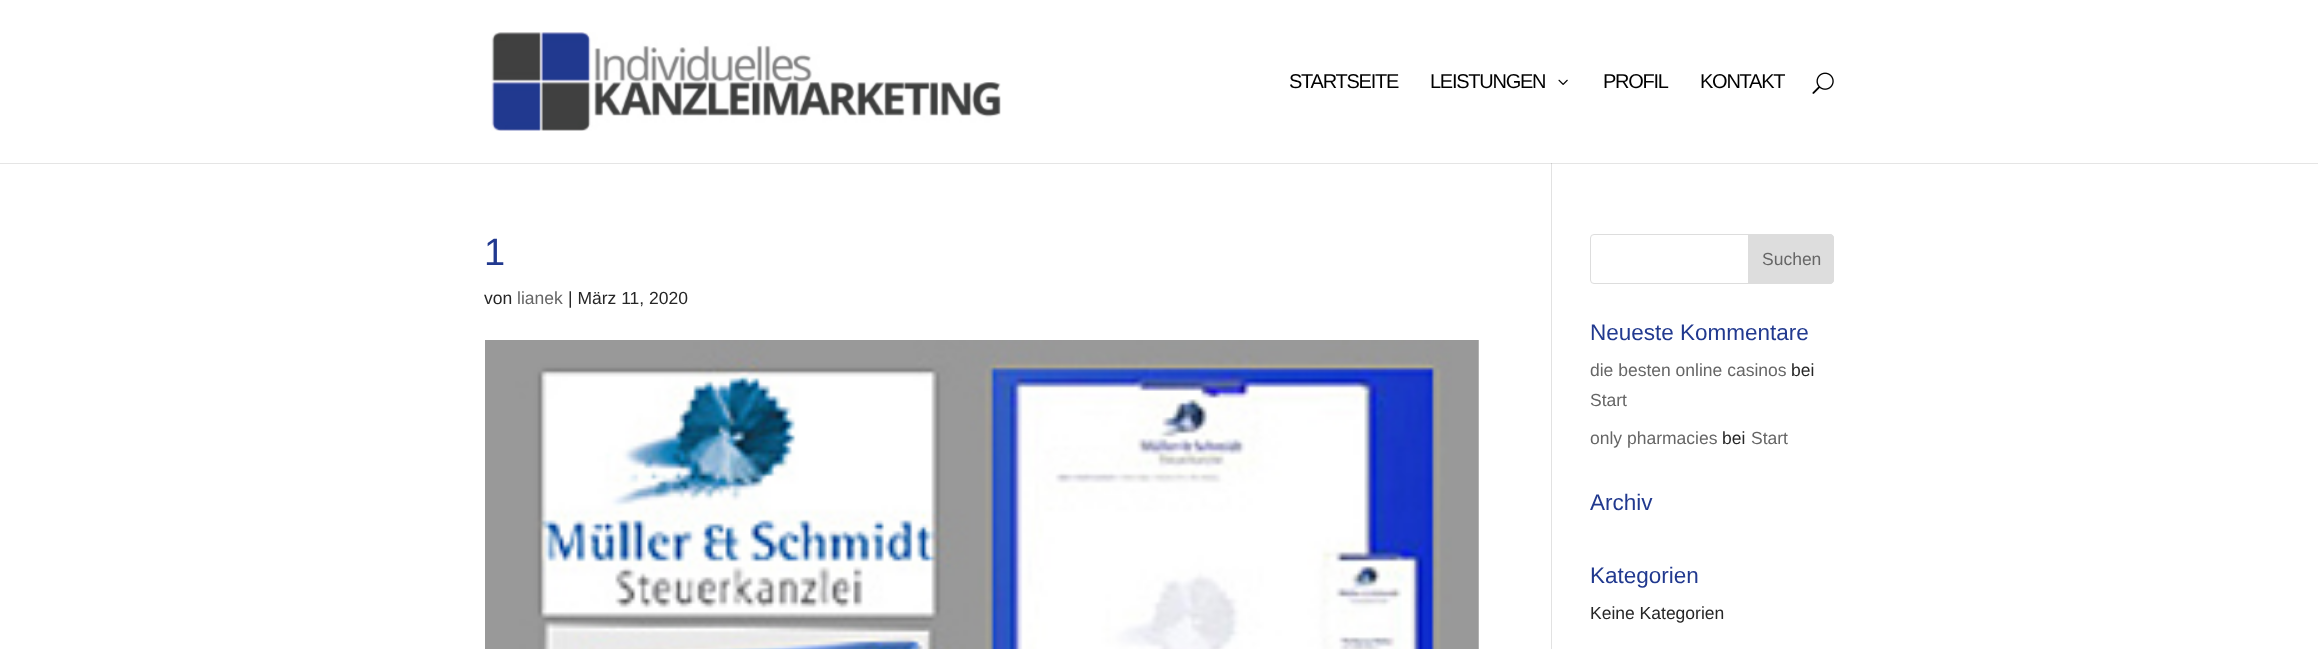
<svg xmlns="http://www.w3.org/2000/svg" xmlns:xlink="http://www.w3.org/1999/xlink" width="2318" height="649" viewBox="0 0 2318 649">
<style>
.cls-1{font:20px Liberation Sans;letter-spacing:-1.25px;fill:#000000}
.cls-2{font:38px Liberation Sans;fill:#21398f}
.cls-3{font:17.5px Liberation Sans;fill:#262626}
.cls-4{font:17.5px Liberation Sans;fill:#666666}
.cls-5{font:22.5px Liberation Sans;fill:#21398f}
</style>
<rect width="100%" height="100%" fill="#ffffff"/>
<rect fill="#e2e2e2" x="1551" y="161" width="1" height="488"/>
<path fill="#000000" fill-opacity="0.1" d="M0 162V164H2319V1V162Z"/>
<rect fill="#ffffff" x="0" y="161" width="2318" height="2"/>
<image xlink:href="image0.png" x="491" y="32" width="510" height="99"/>
<image xlink:href="image1.png" x="1558" y="79" width="10" height="6"/>
<image xlink:href="image2.png" x="1812" y="72" width="22" height="22"/>
<image xlink:href="image3.png" x="485" y="340" width="994" height="309"/>
<rect fill="none" stroke="#dddddd" x="1590.5" y="234.5" width="243" height="49" rx="3.5"/>
<path fill="#dddddd" stroke="#dddddd" d="M1748.5 234.5H1830C1832 234.5 1833.5 236 1833.5 238V280C1833.5 282 1832 283.5 1830 283.5H1748.5Z"/>
<text class="cls-1" x="1289" y="88">STARTSEITE</text>
<text class="cls-1" x="1430" y="88">LEISTUNGEN</text>
<text class="cls-1" x="1603" y="88">PROFIL</text>
<text class="cls-1" x="1700" y="88">KONTAKT</text>
<text class="cls-2" x="484" y="265">1</text>
<text class="cls-3" x="484" y="304">von</text>
<text class="cls-4" x="517" y="304">lianek</text>
<text class="cls-3" x="568" y="304">| März 11, 2020</text>
<text class="cls-4" x="1762" y="265">Suchen</text>
<text class="cls-5" x="1590" y="340">Neueste Kommentare</text>
<text class="cls-4" x="1590" y="376">die besten online casinos</text>
<text class="cls-3" x="1791" y="376">bei</text>
<text class="cls-4" x="1590" y="406">Start</text>
<text class="cls-4" x="1590" y="444">only pharmacies</text>
<text class="cls-3" x="1722" y="444">bei</text>
<text class="cls-4" x="1751" y="444">Start</text>
<text class="cls-5" x="1590" y="510">Archiv</text>
<text class="cls-5" x="1590" y="583">Kategorien</text>
<text class="cls-3" x="1590" y="619">Keine Kategorien</text>
</svg>
